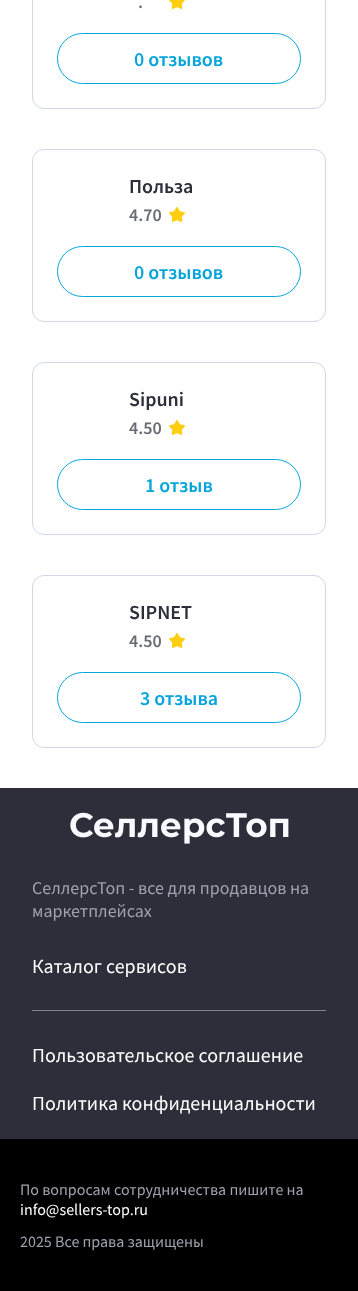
<svg xmlns="http://www.w3.org/2000/svg" xmlns:xlink="http://www.w3.org/1999/xlink" width="358" height="1291" viewBox="0 0 358 1291">
<style>
.cls-1{font:600 18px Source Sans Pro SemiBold;fill:#696c74}
.cls-2{font:600 20px Source Sans Pro SemiBold;fill:#08a5dd}
.cls-3{font:600 20px Source Sans Pro SemiBold;fill:#2d2e3a}
.cls-4{font:18px Source Sans Pro;fill:#9ea2af}
.cls-5{font:20px Source Sans Pro;fill:#ffffff}
.cls-6{font:16px Source Sans Pro;fill:#9ea2af}
.cls-7{font:16px Source Sans Pro;fill:#ffffff}
</style>
<rect width="100%" height="100%" fill="#ffffff"/>
<rect fill="none" stroke="#d1d6e9" x="32.5" y="-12.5" width="293" height="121" rx="11.5"/>
<image xlink:href="image0.png" x="169" y="0" width="16" height="9"/>
<rect fill="none" stroke="#08a5dd" x="57.5" y="33.5" width="243" height="50" rx="25"/>
<rect fill="none" stroke="#d1d6e9" x="32.5" y="149.5" width="293" height="172" rx="11.5"/>
<image xlink:href="image1.png" x="169" y="207" width="16" height="15"/>
<rect fill="none" stroke="#08a5dd" x="57.5" y="246.5" width="243" height="50" rx="25"/>
<rect fill="none" stroke="#d1d6e9" x="32.5" y="362.5" width="293" height="172" rx="11.5"/>
<image xlink:href="image1.png" x="169" y="420" width="16" height="15"/>
<rect fill="none" stroke="#08a5dd" x="57.5" y="459.5" width="243" height="50" rx="25"/>
<rect fill="none" stroke="#d1d6e9" x="32.5" y="575.5" width="293" height="172" rx="11.5"/>
<image xlink:href="image1.png" x="169" y="633" width="16" height="15"/>
<rect fill="none" stroke="#08a5dd" x="57.5" y="672.5" width="243" height="50" rx="25"/>
<rect fill="#2d2e3a" x="0" y="788" width="358" height="351"/>
<image xlink:href="image2.png" x="70" y="812" width="219" height="32"/>
<rect fill="#7f8292" x="32" y="1010" width="294" height="1"/>
<rect fill="#000000" x="0" y="1139" width="358" height="152"/>
<text class="cls-1" x="138" y="8">.</text>
<text class="cls-2" x="134" y="66">0 отзывов</text>
<text class="cls-3" x="129" y="193">Польза</text>
<text class="cls-1" x="129" y="221">4.70</text>
<text class="cls-2" x="134" y="279">0 отзывов</text>
<text class="cls-3" x="129" y="406">Sipuni</text>
<text class="cls-1" x="129" y="434">4.50</text>
<text class="cls-2" x="145" y="492">1 отзыв</text>
<text class="cls-3" x="129" y="619">SIPNET</text>
<text class="cls-1" x="129" y="647">4.50</text>
<text class="cls-2" x="140" y="705">3 отзыва</text>
<text class="cls-4"><tspan x="32" y="894">СеллерсТоп - все для продавцов на</tspan><tspan x="32" y="917">маркетплейсах</tspan></text>
<text class="cls-5" x="32" y="973">Каталог сервисов</text>
<text class="cls-5" x="32" y="1062">Пользовательское соглашение</text>
<text class="cls-5" x="32" y="1110">Политика конфиденциальности</text>
<text class="cls-6" x="20" y="1195">По вопросам сотрудничества пишите на</text>
<text class="cls-7" x="20" y="1215">info@sellers-top.ru</text>
<text class="cls-6" x="20" y="1247">2025 Все права защищены</text>
</svg>
